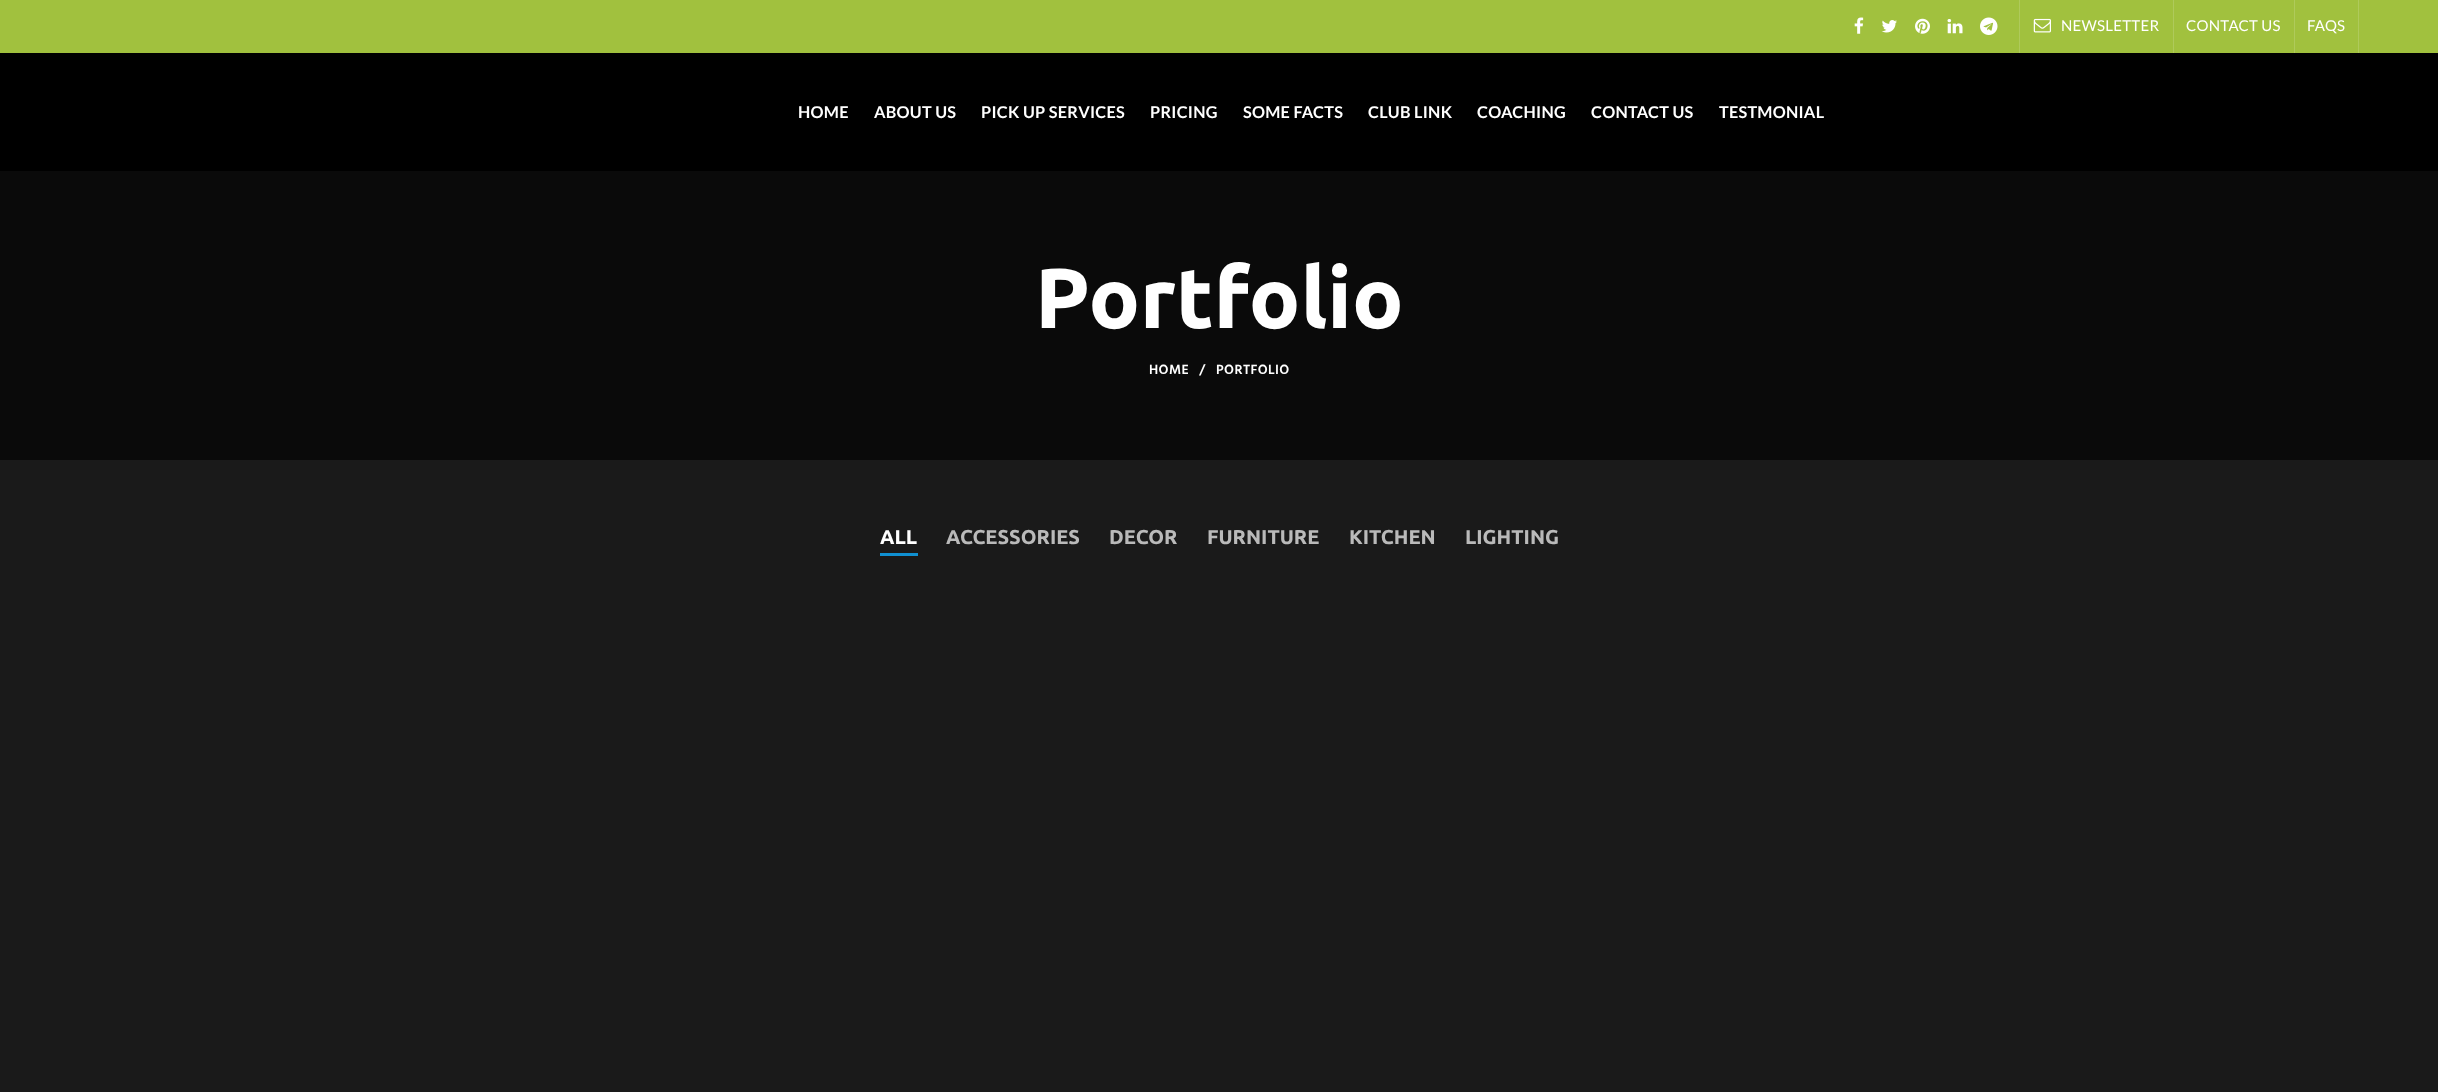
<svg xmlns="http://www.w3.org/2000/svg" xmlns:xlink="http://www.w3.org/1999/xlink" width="2438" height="1092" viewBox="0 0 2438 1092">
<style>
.cls-1{font:15px Lato;letter-spacing:0.25px;fill:#ffffff}
.cls-2{font:bold 16.25px Lato;letter-spacing:0.25px;fill:#ffffff}
.cls-3{font:bold 85px Ubuntu;fill:#ffffff}
.cls-4{font:600 13.75px Hind;letter-spacing:0.4px;fill:#ffffff}
.cls-5{font:bold 20px Ubuntu;fill:#ffffff}
.cls-6{font:bold 20px Ubuntu;fill:#bababa}
</style>
<rect width="100%" height="100%" fill="#1a1a1a"/>
<rect fill="#a1c13e" x="0" y="0" width="2438" height="53"/>
<image xlink:href="image0.png" x="1854" y="17" width="10" height="17"/>
<image xlink:href="image1.png" x="1881" y="20" width="16" height="13"/>
<image xlink:href="image2.png" x="1915" y="18" width="15" height="16"/>
<image xlink:href="image3.png" x="1947" y="19" width="16" height="15"/>
<image xlink:href="image4.png" x="1980" y="17" width="18" height="18"/>
<rect fill="#afca5b" x="2019" y="0" width="1" height="53"/>
<image xlink:href="image5.png" x="2033" y="18" width="18" height="15"/>
<rect fill="#afca5b" x="2173" y="0" width="1" height="53"/>
<rect fill="#afca5b" x="2294" y="0" width="1" height="53"/>
<rect fill="#afca5b" x="2358" y="0" width="1" height="53"/>
<rect fill="#000000" x="0" y="53" width="2438" height="118"/>
<rect fill="#0a0a0a" x="0" y="171" width="2438" height="289"/>
<rect fill="#1090d1" x="880" y="553" width="38" height="3"/>
<text class="cls-1" x="2061" y="31">NEWSLETTER</text>
<text class="cls-1" x="2186" y="31">CONTACT US</text>
<text class="cls-1" x="2307" y="31">FAQS</text>
<text class="cls-2" x="798" y="118">HOME</text>
<text class="cls-2" x="874" y="118">ABOUT US</text>
<text class="cls-2" x="981" y="118">PICK UP SERVICES</text>
<text class="cls-2" x="1150" y="118">PRICING</text>
<text class="cls-2" x="1243" y="118">SOME FACTS</text>
<text class="cls-2" x="1368" y="118">CLUB LINK</text>
<text class="cls-2" x="1477" y="118">COACHING</text>
<text class="cls-2" x="1591" y="118">CONTACT US</text>
<text class="cls-2" x="1719" y="118">TESTMONIAL</text>
<text class="cls-3" x="1035" y="328">Portfolio</text>
<text class="cls-4" x="1149" y="374">HOME</text>
<text class="cls-4" x="1199" y="374">/</text>
<text class="cls-4" x="1216" y="374">PORTFOLIO</text>
<text class="cls-5" x="880" y="544">ALL</text>
<text class="cls-6" x="946" y="544">ACCESSORIES</text>
<text class="cls-6" x="1109" y="544">DECOR</text>
<text class="cls-6" x="1207" y="544">FURNITURE</text>
<text class="cls-6" x="1349" y="544">KITCHEN</text>
<text class="cls-6" x="1465" y="544">LIGHTING</text>
</svg>
